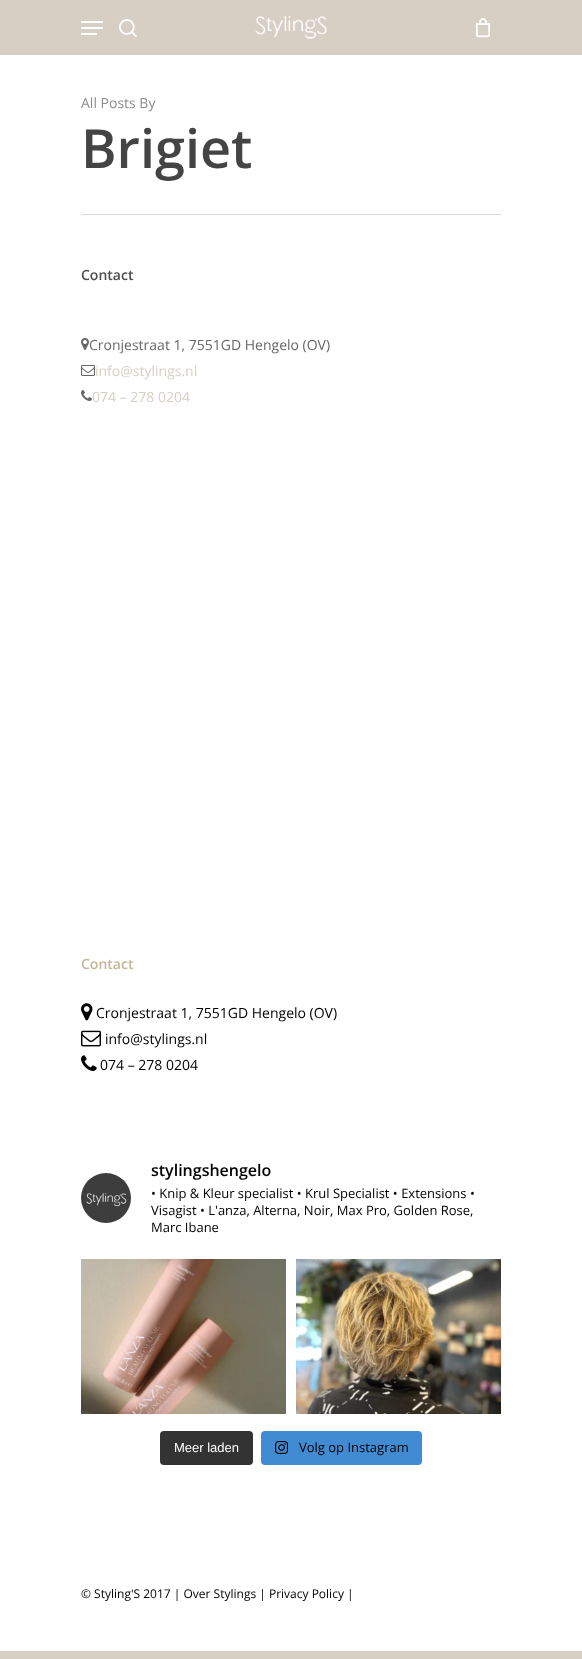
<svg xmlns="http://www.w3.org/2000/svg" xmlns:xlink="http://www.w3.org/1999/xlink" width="582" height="1659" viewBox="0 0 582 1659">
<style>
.cls-1{font:14px Open Sans;fill:#8c8c8c}
.cls-2{font:600 54px Open Sans;fill:#444444}
.cls-3{font:600 14px Open Sans;fill:#4d4d4d}
.cls-4{font:14px Open Sans;fill:#676767}
.cls-5{font:14px Open Sans;fill:#d8cfc4}
.cls-6{font:600 14px Open Sans;fill:#c6b49b}
.cls-7{font:14px Open Sans;fill:#000000}
.cls-8{font:600 16px Open Sans;fill:#000000}
.cls-9{font:13px Open Sans;fill:#000000}
.cls-10{font:13px Liberation Sans;fill:#ffffff}
.cls-11{font:12px Open Sans;fill:#000000}
</style>
<rect width="100%" height="100%" fill="#d8cfc4"/>
<rect fill="#ffffff" x="0" y="55" width="582" height="1596"/>
<image xlink:href="image0.png" x="255" y="16" width="72" height="23"/>
<rect fill="#ffffff" x="81" y="21" width="22" height="2"/>
<rect fill="#ffffff" x="81" y="33" width="16" height="2"/>
<rect fill="#ffffff" x="81" y="27" width="22" height="2"/>
<image xlink:href="image1.png" x="119" y="19" width="18" height="18"/>
<image xlink:href="image2.png" x="476" y="18" width="14" height="20"/>
<rect fill="#d9d9d9" x="81" y="214" width="420" height="1"/>
<image xlink:href="image3.png" x="81" y="338" width="8" height="12"/>
<image xlink:href="image4.png" x="81" y="365" width="14" height="11"/>
<image xlink:href="image5.png" x="81" y="390" width="11" height="11"/>
<image xlink:href="image6.png" x="81" y="1003" width="12" height="18"/>
<image xlink:href="image7.png" x="81" y="1030" width="20" height="17"/>
<image xlink:href="image8.png" x="81" y="1055" width="16" height="16"/>
<image xlink:href="image9.png" x="81" y="1173" width="50" height="50"/>
<image xlink:href="image10.png" x="81" y="1259" width="205" height="155"/>
<image xlink:href="image11.png" x="296" y="1259" width="205" height="155"/>
<rect fill="#333333" x="160" y="1431" width="93" height="34" rx="4"/>
<rect fill="#408bd1" x="261" y="1431" width="161" height="34" rx="4"/>
<image xlink:href="image12.png" x="275" y="1441" width="13" height="13"/>
<text class="cls-1" x="81" y="108">All Posts By</text>
<text class="cls-2" x="81" y="168">Brigiet</text>
<text class="cls-3" x="81" y="280">Contact</text>
<text class="cls-4" x="89" y="350">Cronjestraat 1, 7551GD Hengelo (OV)</text>
<text class="cls-5" x="95" y="376">info@stylings.nl</text>
<text class="cls-5" x="92" y="402">074 – 278 0204</text>
<text class="cls-6" x="81" y="969">Contact</text>
<text class="cls-7" x="96" y="1018">Cronjestraat 1, 7551GD Hengelo (OV)</text>
<text class="cls-7" x="105" y="1044">info@stylings.nl</text>
<text class="cls-7" x="100" y="1070">074 – 278 0204</text>
<text class="cls-8" x="151" y="1176">stylingshengelo</text>
<text class="cls-9"><tspan x="151" y="1198">• Knip &amp; Kleur specialist • Krul Specialist • Extensions •</tspan><tspan x="151" y="1215">Visagist • L'anza, Alterna, Noir, Max Pro, Golden Rose,</tspan><tspan x="151" y="1232">Marc Ibane</tspan></text>
<text class="cls-10" x="174" y="1452">Meer laden</text>
<text class="cls-9" x="299" y="1452">Volg op Instagram</text>
<text class="cls-11" x="81" y="1598">© Styling'S 2017 | Over Stylings | Privacy Policy |</text>
</svg>
